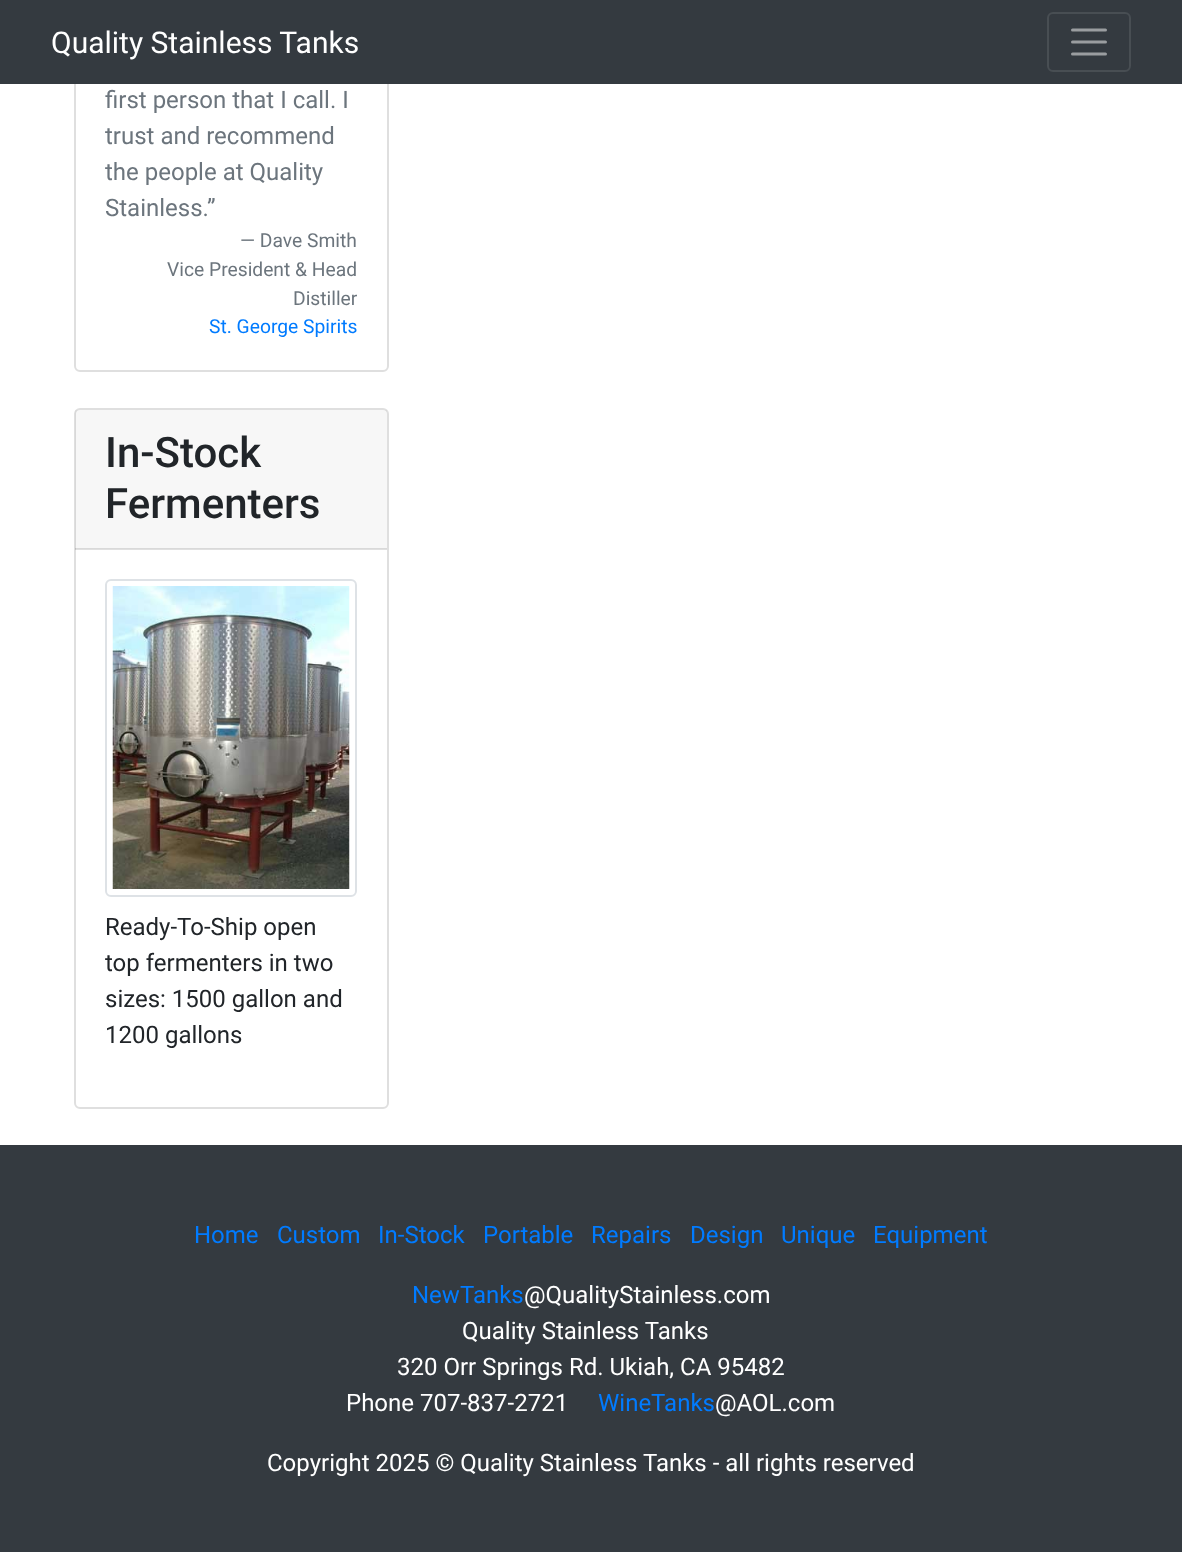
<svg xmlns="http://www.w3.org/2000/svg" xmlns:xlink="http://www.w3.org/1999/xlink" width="1182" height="1552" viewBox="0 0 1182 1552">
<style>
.cls-1{font:30px Roboto;fill:#ffffff}
.cls-2{font:24px Roboto;fill:#6c757d}
.cls-3{font:19.25px Roboto;fill:#6c757d}
.cls-4{font:19.25px Roboto;fill:#007bff}
.cls-5{font:500 42px Roboto;fill:#212529}
.cls-6{font:24px Roboto;fill:#212529}
.cls-7{font:24px Roboto;fill:#007bff}
.cls-8{font:24px Roboto;fill:#ffffff}
</style>
<rect width="100%" height="100%" fill="#ffffff"/>
<rect fill="none" stroke="#dfdfdf" stroke-width="2" x="75" y="-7" width="313" height="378" rx="5"/>
<rect fill="#343a40" x="0" y="0" width="1182" height="84"/>
<rect fill="none" stroke="#484e53" stroke-width="2" x="1048" y="13" width="82" height="58" rx="5"/>
<path fill="none" stroke="#9a9da0" stroke-width="3" stroke-linecap="round" d="M1072.5 30H1105.5M1072.5 42H1105.5M1072.5 54H1105.5"/>
<rect fill="none" stroke="#dfdfdf" stroke-width="2" x="75" y="409" width="313" height="699" rx="5"/>
<rect fill="#000000" fill-opacity="0.03" x="75" y="410" width="312" height="139"/>
<rect fill="#000000" fill-opacity="0.12" x="75" y="548" width="312" height="2"/>
<rect fill="none" stroke="#dee2e6" stroke-width="2" x="106" y="580" width="250" height="316" rx="5"/>
<image xlink:href="image0.png" x="112" y="586" width="238" height="303"/>
<rect fill="#343a40" x="0" y="1145" width="1182" height="407"/>
<text class="cls-1" x="51" y="53">Quality Stainless Tanks</text>
<text class="cls-2"><tspan x="105" y="108">first person that I call. I</tspan><tspan x="105" y="144">trust and recommend</tspan><tspan x="105" y="180">the people at Quality</tspan><tspan x="105" y="216">Stainless.”</tspan></text>
<text class="cls-3" x="240" y="247">— Dave Smith</text>
<text class="cls-3" x="167" y="276">Vice President &amp; Head</text>
<text class="cls-3" x="293" y="305">Distiller</text>
<text class="cls-4" x="209" y="333">St. George Spirits</text>
<text class="cls-5"><tspan x="105" y="467">In-Stock</tspan><tspan x="105" y="518">Fermenters</tspan></text>
<text class="cls-6"><tspan x="105" y="935">Ready-To-Ship open</tspan><tspan x="105" y="971">top fermenters in two</tspan><tspan x="105" y="1007">sizes: 1500 gallon and</tspan><tspan x="105" y="1043">1200 gallons</tspan></text>
<text class="cls-7" x="194" y="1243">Home</text>
<text class="cls-7" x="277" y="1243">Custom</text>
<text class="cls-7" x="378" y="1243">In-Stock</text>
<text class="cls-7" x="483" y="1243">Portable</text>
<text class="cls-7" x="591" y="1243">Repairs</text>
<text class="cls-7" x="690" y="1243">Design</text>
<text class="cls-7" x="781" y="1243">Unique</text>
<text class="cls-7" x="873" y="1243">Equipment</text>
<text class="cls-7" x="412" y="1303">NewTanks</text>
<text class="cls-8" x="524" y="1303">@QualityStainless.com</text>
<text class="cls-8" x="462" y="1339">Quality Stainless Tanks</text>
<text class="cls-8" x="397" y="1375">320 Orr Springs Rd. Ukiah, CA 95482</text>
<text class="cls-8" x="346" y="1411">Phone 707-837-2721</text>
<text class="cls-7" x="598" y="1411">WineTanks</text>
<text class="cls-8" x="715" y="1411">@AOL.com</text>
<text class="cls-8" x="267" y="1471">Copyright 2025 © Quality Stainless Tanks - all rights reserved</text>
</svg>
